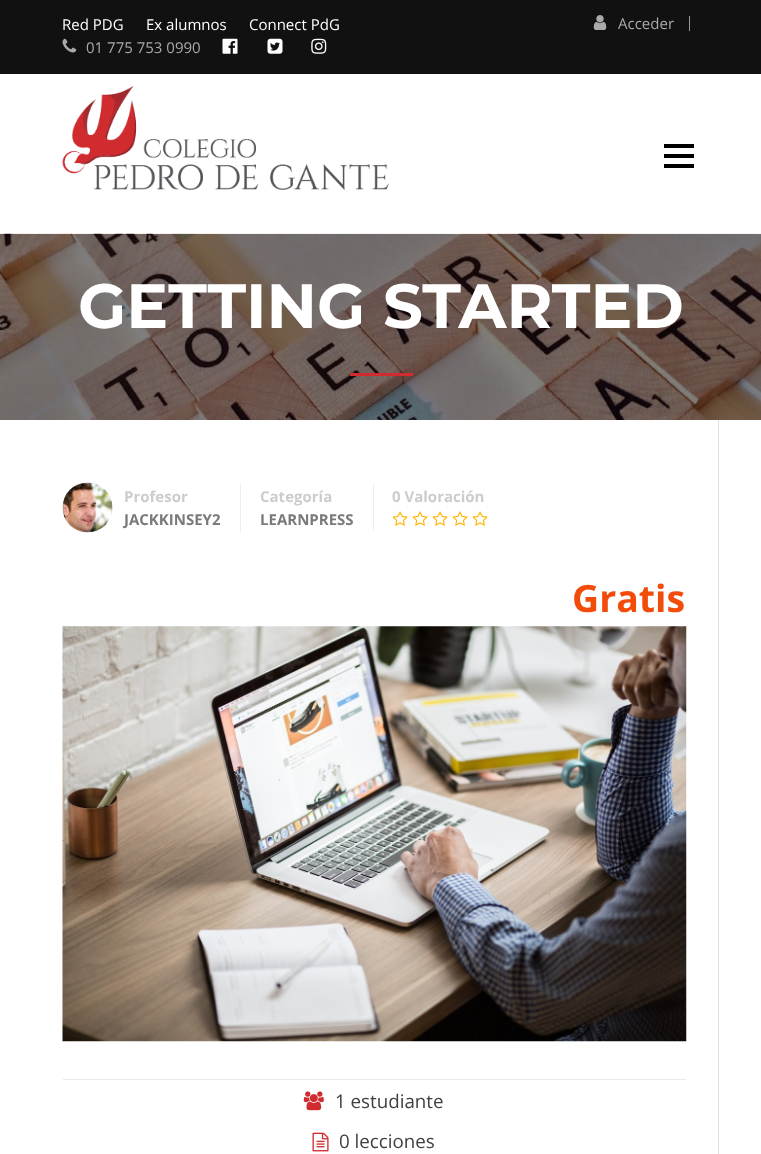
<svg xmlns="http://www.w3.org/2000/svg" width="761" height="1154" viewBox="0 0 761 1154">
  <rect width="100%" height="100%" fill="#ffffff"/>
  <rect x="0" y="0" width="761" height="74" fill="#111111"/>
  <text x="62" y="30" font-family="Open Sans" font-size="15" fill="#ffffff">Red PDG</text>
  <text x="146" y="30" font-family="Open Sans" font-size="15" fill="#ffffff">Ex alumnos</text>
  <text x="249" y="30" font-family="Open Sans" font-size="15" fill="#ffffff">Connect PdG</text>
  <image x="62" y="38" width="15" height="15" href="img1.png"/>
  <text x="86" y="53" font-family="Open Sans" font-size="15" fill="#aaaaaa">01 775 753 0990</text>
  <image x="222" y="38" width="16" height="16" href="img2.png"/>
  <image x="267" y="38" width="16" height="16" href="img3.png"/>
  <image x="311" y="38" width="16" height="16" href="img4.png"/>
  <image x="593" y="15" width="14" height="15" href="img5.png"/>
  <text x="618" y="29" font-family="Open Sans" font-size="15" fill="#aaaaaa">Acceder</text>
  <rect x="689" y="16" width="1" height="15" fill="#9a9a9a"/>
  <image x="62" y="86" width="327" height="104" href="img6.png"/>
  <rect x="664" y="154" width="30" height="4" fill="#000000"/>
  <rect x="664" y="144" width="30" height="4" fill="#000000"/>
  <rect x="664" y="164" width="30" height="4" fill="#000000"/>
  <image x="0" y="233" width="761" height="187" href="img7.png"/>
  <text x="78" y="328" font-family="Montserrat" font-size="62.5" font-weight="bold" fill="#ffffff">GETTING STARTED</text>
  <rect x="350" y="373" width="63" height="3" fill="#d02c2f"/>
  <rect x="718" y="420" width="1" height="734" fill="#e1e2e4"/>
  <rect x="240" y="483" width="1" height="50" fill="#eeeeee"/>
  <image x="62" y="482" width="51" height="51" href="img8.png"/>
  <text x="124" y="502" font-family="Open Sans" font-size="15" font-weight="bold" fill="#cccccc">Profesor</text>
  <text x="124" y="525" font-family="Open Sans" font-size="15" font-weight="bold" fill="#7a7a7a">JACKKINSEY2</text>
  <rect x="373" y="483" width="1" height="47" fill="#eeeeee"/>
  <text x="260" y="502" font-family="Open Sans" font-size="15" font-weight="bold" fill="#cccccc">Categoría</text>
  <text x="260" y="525" font-family="Open Sans" font-size="15" font-weight="bold" fill="#7a7a7a">LEARNPRESS</text>
  <text x="392" y="502" font-family="Open Sans" font-size="15" font-weight="bold" fill="#cccccc">0 Valoración</text>
  <image x="393" y="511" width="15" height="15" href="img9.png"/>
  <image x="412" y="511" width="16" height="15" href="img10.png"/>
  <image x="432" y="511" width="16" height="15" href="img10.png"/>
  <image x="452" y="511" width="16" height="15" href="img10.png"/>
  <image x="472" y="511" width="16" height="15" href="img10.png"/>
  <text x="572" y="612" font-family="Open Sans" font-size="37.5" font-weight="bold" fill="#f24c0a">Gratis</text>
  <image x="62" y="626" width="625" height="416" href="img11.png"/>
  <rect x="63" y="1079" width="623" height="1" fill="#eaeaea"/>
  <image x="303" y="1091" width="21" height="20" href="img12.png"/>
  <text x="335" y="1108" font-family="Open Sans" font-size="18.75" fill="#404040">1 estudiante</text>
  <image x="312" y="1132" width="17" height="20" href="img13.png"/>
  <text x="339" y="1148" font-family="Open Sans" font-size="18.75" fill="#404040">0 lecciones</text>
</svg>
